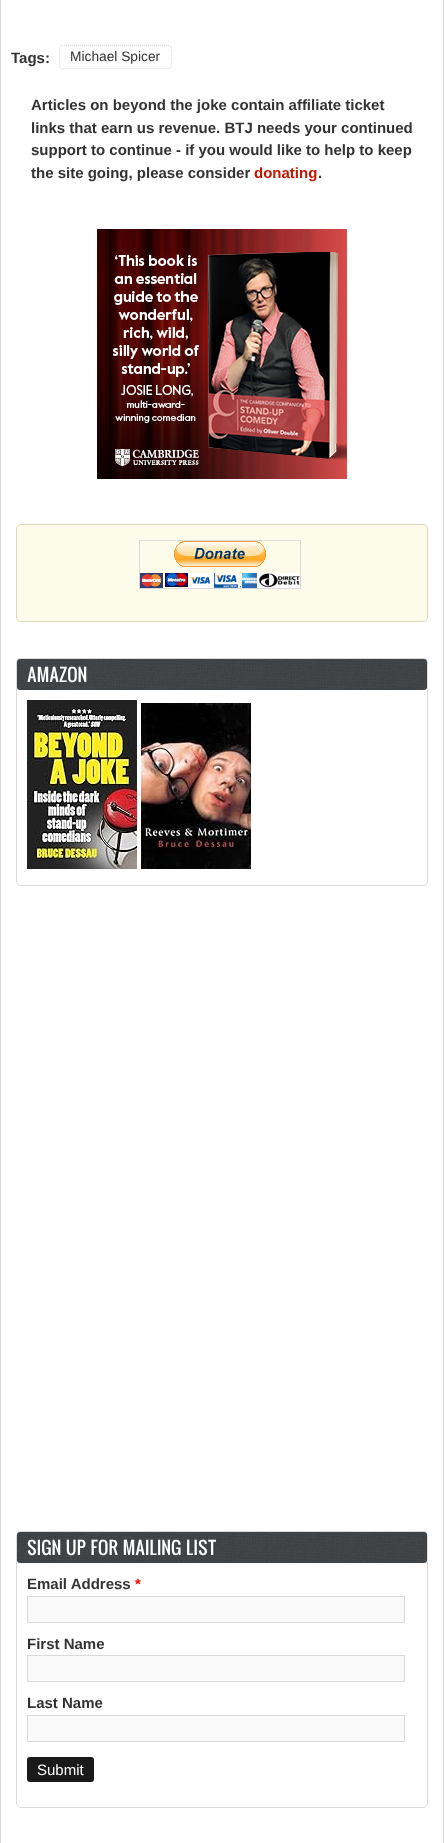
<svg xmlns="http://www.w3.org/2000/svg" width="444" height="1843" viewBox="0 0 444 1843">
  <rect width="100%" height="100%" fill="#ffffff"/>
  <rect x="0.5" y="-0.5" width="443" height="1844" fill="none" stroke="#d9d9d9"/>
  <text x="11" y="63" font-family="Liberation Sans" font-size="15" font-weight="bold" fill="#333333">Tags:</text>
  <path d="M62 45.5H169C170.5 45.5 171.5 46.5 171.5 48V66C171.5 67.5 170.5 68.5 169 68.5H62C60.5 68.5 59.5 67.5 59.5 66V48C59.5 46.5 60.5 45.5 62 45.5Z" fill="none" stroke="#dadada" stroke-dasharray="1 1"/>
  <text x="70" y="61" font-family="Liberation Sans" font-size="13.75" fill="#333333">Michael Spicer</text>
  <text x="31" y="110" font-family="Liberation Sans" font-size="15" font-weight="bold" fill="#333333">Articles on beyond the joke contain affiliate ticket</text>
  <text x="31" y="133" font-family="Liberation Sans" font-size="15" font-weight="bold" fill="#333333">links that earn us revenue. BTJ needs your continued</text>
  <text x="31" y="155" font-family="Liberation Sans" font-size="15" font-weight="bold" fill="#333333">support to continue - if you would like to help to keep</text>
  <text x="31" y="178" font-family="Liberation Sans" font-size="15" font-weight="bold" fill="#333333">the site going, please consider</text>
  <text x="254" y="178" font-family="Liberation Sans" font-size="15" font-weight="bold" fill="#c01700">donating</text>
  <text x="318" y="178" font-family="Liberation Sans" font-size="15" font-weight="bold" fill="#333333">.</text>
  <image x="97" y="229" width="250" height="250" href="img1.png"/>
  <rect x="16.5" y="524.5" width="411" height="97" rx="4.5" fill="#fdfbe9" stroke="#dcd7bb"/>
  <rect x="139.5" y="540.5" width="161" height="48" fill="none" stroke="#dbdada"/>
  <image x="140" y="541" width="160" height="47" href="img2.png"/>
  <rect x="16.5" y="658.5" width="411" height="227" rx="4.5" fill="none" stroke="#dadada"/>
  <image x="17" y="659" width="410" height="31" href="img3.png"/>
  <text x="27" y="682" font-family="Oswald" font-size="17.4" fill="#ffffff">AMAZON</text>
  <image x="27" y="700" width="110" height="169" href="img4.png"/>
  <image x="141" y="703" width="110" height="166" href="img5.png"/>
  <rect x="16.5" y="1531.5" width="411" height="276" rx="4.5" fill="none" stroke="#dadada"/>
  <image x="17" y="1532" width="410" height="31" href="img3.png"/>
  <text x="27" y="1555" font-family="Oswald" font-size="17.4" fill="#ffffff">SIGN UP FOR MAILING LIST</text>
  <text x="27" y="1589" font-family="Liberation Sans" font-size="15" font-weight="bold" fill="#333333">Email Address</text>
  <text x="135" y="1589" font-family="Liberation Sans" font-size="15" font-weight="bold" fill="#ff0000">*</text>
  <rect x="27.5" y="1596.5" width="377" height="26" fill="#fafafa" stroke="#dbdada"/>
  <text x="27" y="1649" font-family="Liberation Sans" font-size="15" font-weight="bold" fill="#333333">First Name</text>
  <rect x="27.5" y="1655.5" width="377" height="26" fill="#fafafa" stroke="#dbdada"/>
  <text x="27" y="1708" font-family="Liberation Sans" font-size="15" font-weight="bold" fill="#333333">Last Name</text>
  <rect x="27.5" y="1715.5" width="377" height="26" fill="#fafafa" stroke="#dbdada"/>
  <rect x="27" y="1757" width="67" height="25" rx="3" fill="#1a1a1a"/>
  <text x="37" y="1775" font-family="Liberation Sans" font-size="15" fill="#ffffff">Submit</text>
</svg>
